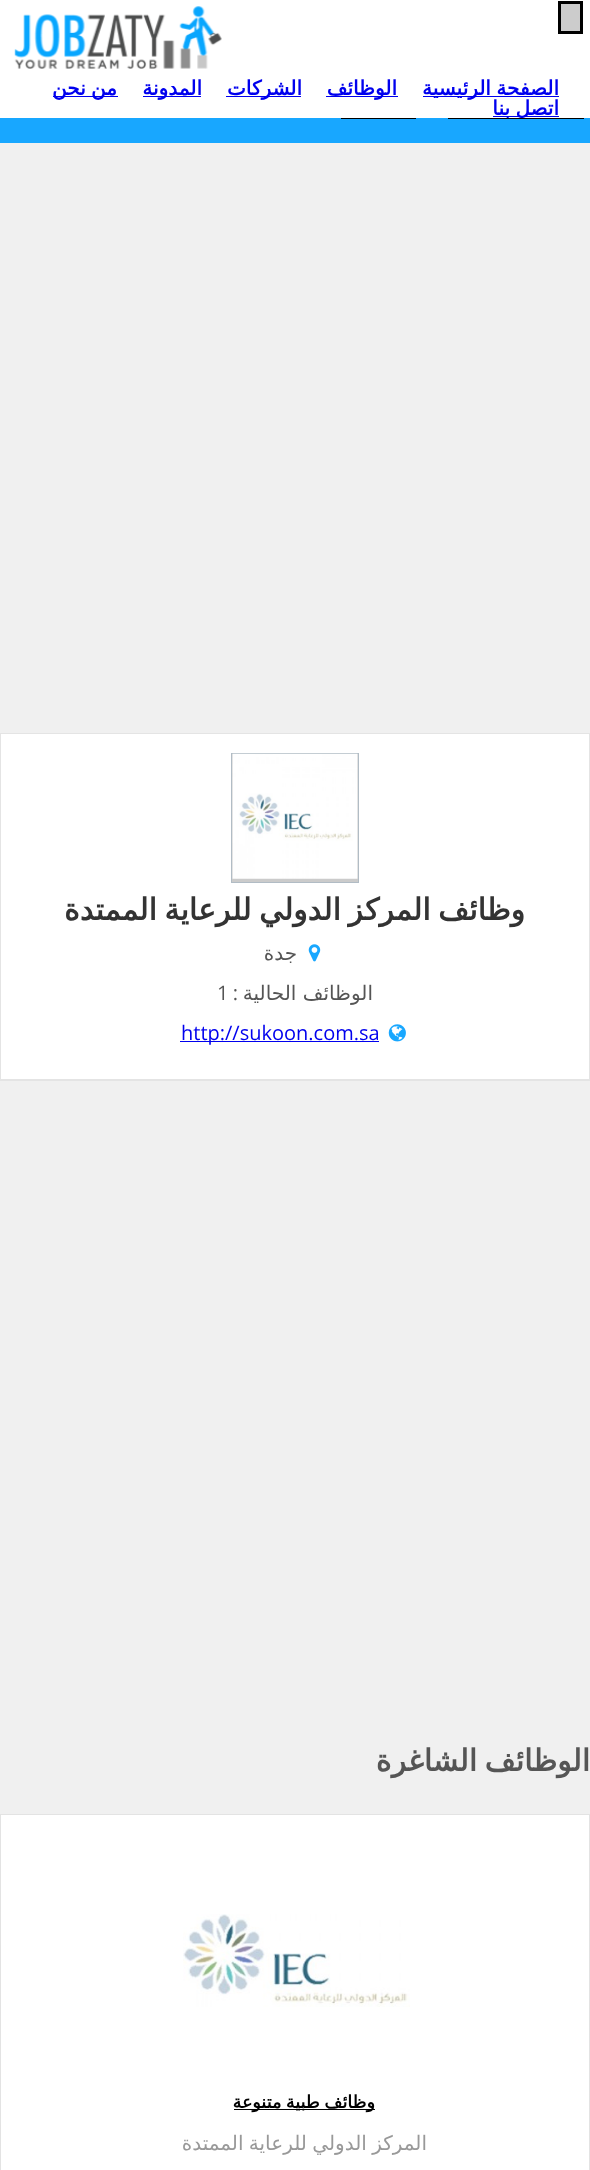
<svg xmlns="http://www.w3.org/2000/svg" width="590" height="2170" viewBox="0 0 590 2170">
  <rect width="100%" height="100%" fill="#18a7ff"/>
  <rect x="0" y="0" width="590" height="118" fill="#ffffff"/>
  <rect x="559.5" y="2.5" width="22" height="30" fill="#cccccc" stroke="#000000" stroke-width="3"/>
  <image x="14" y="6" width="208" height="63" href="img1.png"/>
  <rect x="423" y="96" width="136" height="1" fill="#0000ee"/>
  <text x="559" y="95" word-spacing="-1" font-family="DejaVu Sans" font-size="20" font-weight="bold" direction="rtl" fill="#0000ee">الصفحة الرئيسية</text>
  <rect x="326" y="96" width="72" height="1" fill="#0000ee"/>
  <text x="397" y="95" font-family="DejaVu Sans" font-size="20" font-weight="bold" direction="rtl" fill="#0000ee">الوظائف</text>
  <rect x="226" y="96" width="75" height="1" fill="#0000ee"/>
  <text x="302" y="95" font-family="DejaVu Sans" font-size="20" font-weight="bold" direction="rtl" fill="#0000ee">الشركات</text>
  <rect x="143" y="96" width="58" height="1" fill="#0000ee"/>
  <text x="202" y="95" font-family="DejaVu Sans" font-size="20" font-weight="bold" direction="rtl" fill="#0000ee">المدونة</text>
  <rect x="53" y="96" width="65" height="1" fill="#0000ee"/>
  <text x="117" y="95" word-spacing="-1" font-family="DejaVu Sans" font-size="20" font-weight="bold" direction="rtl" fill="#0000ee">من نحن</text>
  <rect x="493" y="116" width="66" height="1" fill="#0000ee"/>
  <text x="559" y="115" word-spacing="-1" font-family="DejaVu Sans" font-size="20" font-weight="bold" direction="rtl" fill="#0000ee">اتصل بنا</text>
  <rect x="448" y="118" width="136" height="1" fill="#000000"/>
  <rect x="341" y="118" width="75" height="1" fill="#000000"/>
  <rect x="0" y="143" width="590" height="1671" fill="#f0f0f0"/>
  <rect x="1" y="734" width="588" height="345" fill="#ffffff"/>
  <rect x="0.5" y="733.5" width="589" height="347" fill="none" stroke="#e4e4e4"/>
  <rect x="1" y="1079" width="588" height="1" fill="#e4e4e4"/>
  <rect x="231.5" y="753.5" width="127" height="129" fill="#cbcbcb" stroke="#b1bcc5"/>
  <image x="232" y="753" width="126" height="126" href="img2.png"/>
  <text x="525" y="920" word-spacing="-2" font-family="DejaVu Sans" font-size="30" font-weight="bold" direction="rtl" fill="#333333">وظائف المركز الدولي للرعاية الممتدة</text>
  <image x="308" y="944" width="13" height="18" href="img3.png"/>
  <text x="297" y="960" font-family="DejaVu Sans" font-size="20" direction="rtl" fill="#555555">جدة</text>
  <text x="373" y="1000" font-family="DejaVu Sans" font-size="20" direction="rtl" fill="#555555">الوظائف الحالية</text>
  <text x="238" y="1000" font-family="Open Sans" font-size="20" direction="rtl" fill="#555555">:</text>
  <text x="217" y="1000" font-family="Open Sans" font-size="20" fill="#555555">1</text>
  <image x="388" y="1024" width="18" height="18" href="img4.png"/>
  <rect x="180" y="1041" width="199" height="1" fill="#0000ee"/>
  <text x="181" y="1040" font-family="Open Sans" font-size="20" fill="#0000ee">http://sukoon.com.sa</text>
  <text x="590" y="1771" word-spacing="-2" font-family="DejaVu Sans" font-size="30" font-weight="bold" direction="rtl" fill="#555555">الوظائف الشاغرة</text>
  <rect x="0.5" y="1814.5" width="589" height="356" fill="#ffffff" stroke="#e3e3e3"/>
  <image x="183" y="1914" width="227" height="93" href="img5.png"/>
  <rect x="234" y="2109" width="141" height="1" fill="#000000"/>
  <text x="375" y="2108" word-spacing="-1" font-family="DejaVu Sans" font-size="17.5" font-weight="bold" direction="rtl" fill="#000000">وظائف طبية متنوعة</text>
  <text x="427" y="2150" word-spacing="-1" font-family="DejaVu Sans" font-size="20" direction="rtl" fill="#999999">المركز الدولي للرعاية الممتدة</text>
</svg>
